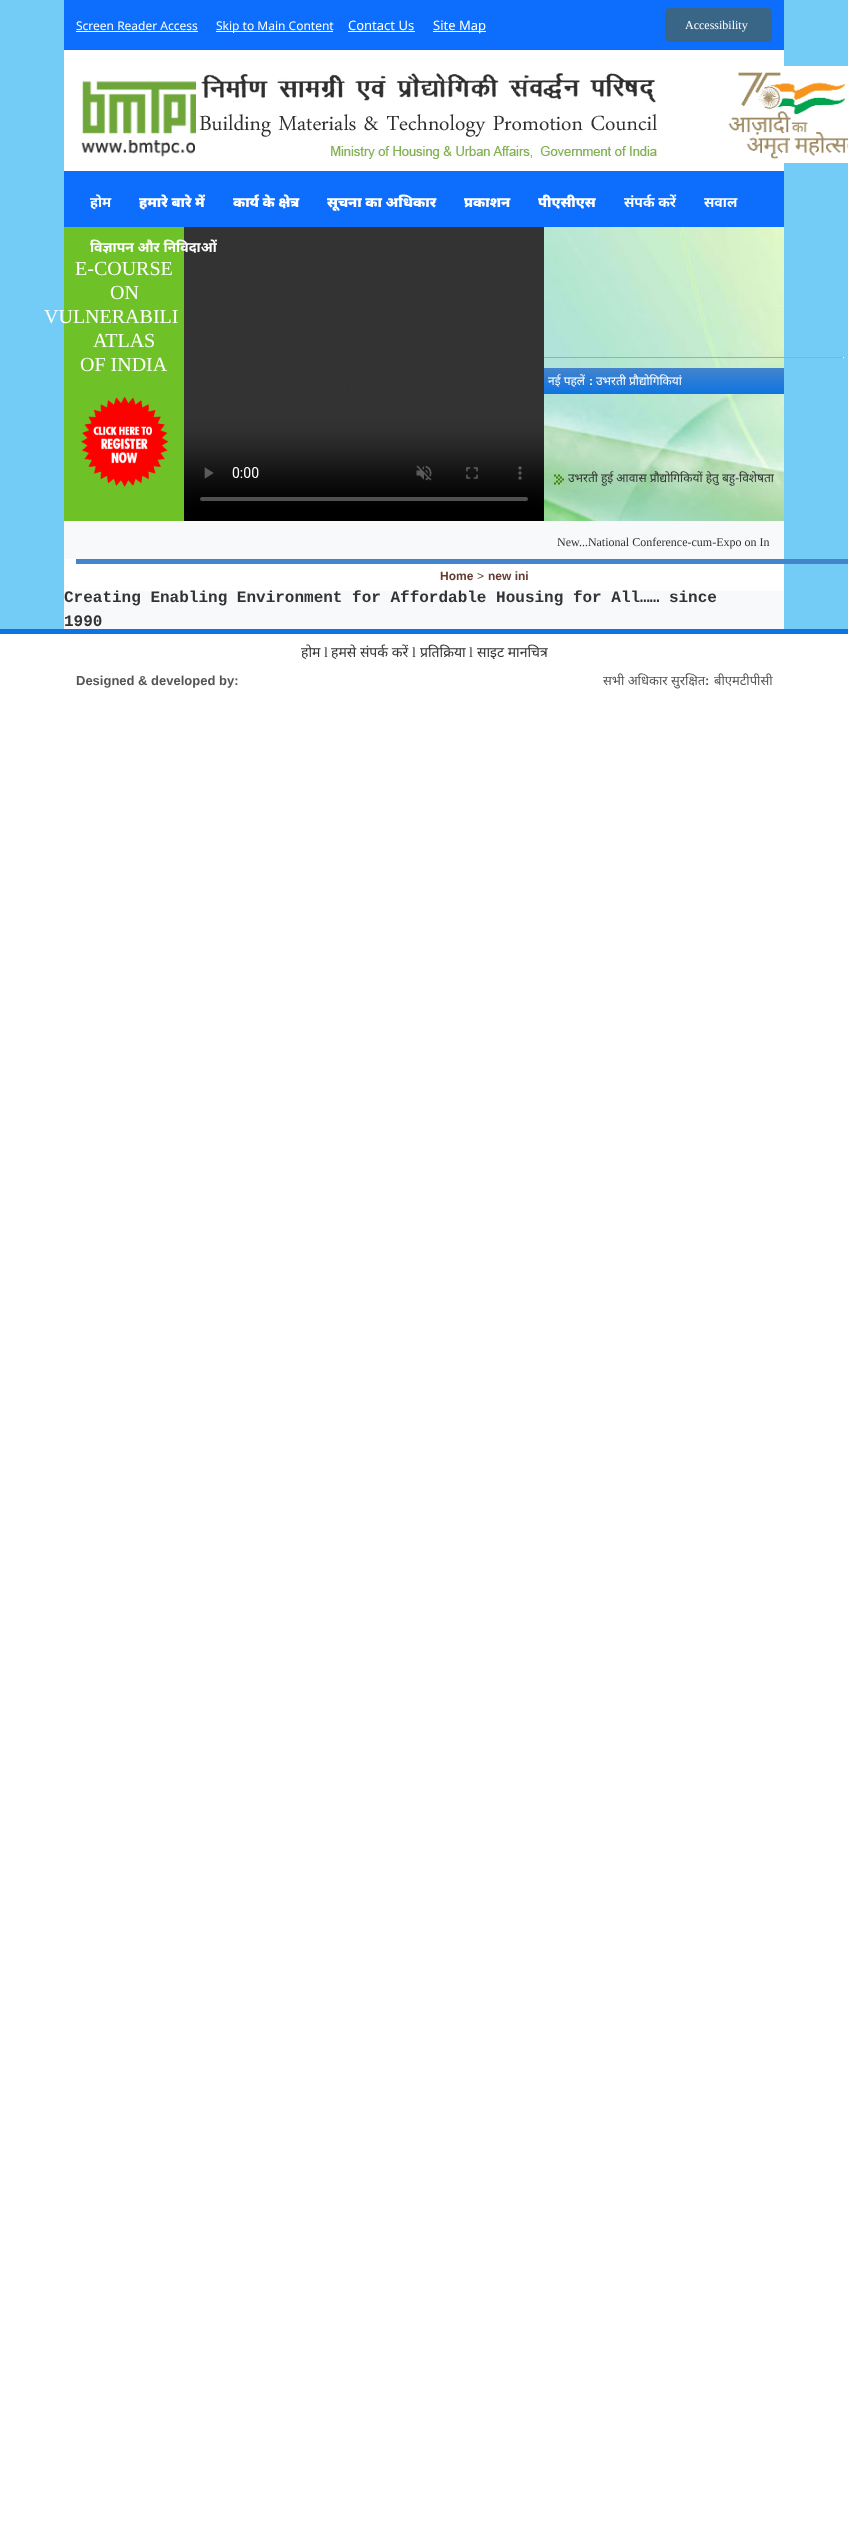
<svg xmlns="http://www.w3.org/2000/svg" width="848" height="2548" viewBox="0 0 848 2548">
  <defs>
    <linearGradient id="g1" gradientUnits="userSpaceOnUse" x1="664" y1="368" x2="664" y2="394"><stop offset="0" stop-color="#4384cb"/><stop offset="1" stop-color="#0e74e2"/></linearGradient>
  </defs>
  <rect width="100%" height="100%" fill="#ffffff"/>
  <rect x="0" y="0" width="848" height="629" fill="#73ccf5"/>
  <rect x="64" y="0" width="720" height="50" fill="#0d6efd"/>
  <text x="76" y="30" font-family="Noto Sans" font-size="12" fill="#ffffff">Screen Reader Access</text>
  <rect x="76" y="31" width="122" height="1" fill="#ffffff"/>
  <rect x="216" y="31" width="117" height="1" fill="#ffffff"/>
  <text x="216" y="30" font-family="Noto Sans" font-size="12" fill="#ffffff">Skip to Main Content</text>
  <text x="348" y="30" font-family="Noto Sans" font-size="13" fill="#ffffff">Contact Us</text>
  <rect x="348" y="31" width="67" height="1" fill="#ffffff"/>
  <rect x="433" y="31" width="53" height="1" fill="#ffffff"/>
  <text x="433" y="30" font-family="Noto Sans" font-size="13" fill="#ffffff">Site Map</text>
  <rect x="665" y="8" width="107" height="34" rx="5" fill="#396587"/>
  <text x="685" y="29" font-family="Liberation Serif" font-size="12" fill="#ffffff">Accessibility</text>
  <rect x="64" y="50" width="720" height="121" fill="#ffffff"/>
  <image x="81" y="81" width="115" height="76" href="img1.png"/>
  <image x="196" y="66" width="652" height="97" href="img2.png"/>
  <rect x="64" y="171" width="720" height="56" fill="#0d6efd"/>
  <text x="90" y="207" font-family="Noto Sans" font-size="14" font-weight="bold" fill="#ffffff">होम</text>
  <text x="624" y="207" font-family="Noto Sans" font-size="14" font-weight="bold" fill="#ffffff">संपर्क करें</text>
  <text x="704" y="207" font-family="Noto Sans" font-size="14" font-weight="bold" fill="#ffffff">सवाल</text>
  <rect x="64" y="227" width="120" height="294" fill="#6fc128"/>
  <image x="184" y="227" width="360" height="294" href="img4.png"/>
  <text x="90" y="252" font-family="Noto Sans" font-size="14" font-weight="bold" fill="#ffffff">विज्ञापन और निविदाओं</text>
  <text x="538" y="207" font-family="Noto Sans" font-size="14" font-weight="900" fill="#ffffff">पीएसीएस</text>
  <text x="464" y="207" font-family="Noto Sans" font-size="14" font-weight="900" fill="#ffffff">प्रकाशन</text>
  <text x="327" y="207" font-family="Noto Sans" font-size="14" font-weight="900" fill="#ffffff">सूचना का अधिकार</text>
  <text x="139" y="207" font-family="Noto Sans" font-size="14" font-weight="900" fill="#ffffff">हमारे बारे में</text>
  <text x="233" y="207" font-family="Noto Sans" font-size="14" font-weight="900" fill="#ffffff">कार्य के क्षेत्र</text>
  <text x="75" y="275" font-family="Liberation Serif" font-size="20" fill="#ffffff">E-COURSE</text>
  <text x="110" y="299" font-family="Liberation Serif" font-size="20" fill="#ffffff">ON</text>
  <text x="44" y="323" font-family="Liberation Serif" font-size="20" fill="#ffffff">VULNERABILI</text>
  <text x="93" y="347" font-family="Liberation Serif" font-size="20" fill="#ffffff">ATLAS</text>
  <text x="80" y="371" font-family="Liberation Serif" font-size="20" fill="#ffffff">OF INDIA</text>
  <image x="81" y="396" width="87" height="91" href="img3.png"/>
  <image x="544" y="227" width="240" height="294" href="img5.png"/>
  <image x="544" y="357" width="300" height="1" href="img6.png"/>
  <rect x="544" y="368" width="240" height="26" fill="url(#g1)"/>
  <text x="548" y="385" font-family="Noto Sans" font-size="12" fill="#ffffff">नई पहलें</text>
  <text x="589" y="385" font-family="Liberation Sans" font-size="12" font-weight="bold" fill="#ffffff">:</text>
  <text x="596" y="385" font-family="Noto Sans" font-size="12" fill="#ffffff">उभरती प्रौद्योगिकियां</text>
  <image x="554" y="474" width="10" height="11" href="img7.png"/>
  <text x="568" y="482" font-family="Noto Sans" font-size="12" fill="#333333">उभरती हुई आवास प्रौद्योगिकियों हेतु बहु-विशेषता</text>
  <rect x="64" y="521" width="720" height="38" fill="#f8f9fa"/>
  <text x="557" y="546" font-family="Liberation Serif" font-size="12" fill="#333333">New...National Conference-cum-Expo on In</text>
  <rect x="64" y="559" width="720" height="32" fill="#ffffff"/>
  <rect x="76" y="559" width="772" height="5" fill="#4384cb"/>
  <text x="440" y="580" font-family="Liberation Sans" font-size="12" font-weight="bold" fill="#643c31">Home</text>
  <text x="477" y="580" font-family="Liberation Sans" font-size="12" fill="#643c31">&gt;</text>
  <text x="488" y="580" font-family="Liberation Sans" font-size="12" font-weight="bold" fill="#643c31">new ini</text>
  <rect x="64" y="591" width="720" height="38" fill="#f8f9fa"/>
  <text x="64" y="602" font-family="Liberation Mono" font-size="16" font-weight="bold" fill="#333333">Creating Enabling Environment for Affordable Housing for All…… since</text>
  <text x="64" y="626" font-family="Liberation Mono" font-size="16" font-weight="bold" fill="#333333">1990</text>
  <rect x="0" y="629" width="848" height="5" fill="#0e74e2"/>
  <text x="301" y="657" font-family="Noto Sans" font-size="14" fill="#333333">होम</text>
  <text x="324" y="657" font-family="Liberation Serif" font-size="14" fill="#333333">l</text>
  <text x="331" y="657" font-family="Noto Sans" font-size="14" fill="#333333">हमसे संपर्क करें</text>
  <text x="412" y="657" font-family="Liberation Serif" font-size="14" fill="#333333">l</text>
  <text x="420" y="657" font-family="Noto Sans" font-size="14" fill="#333333">प्रतिक्रिया</text>
  <text x="469" y="657" font-family="Liberation Serif" font-size="14" fill="#333333">l</text>
  <text x="477" y="657" font-family="Noto Sans" font-size="14" fill="#333333">साइट मानचित्र</text>
  <text x="76" y="685" font-family="Liberation Sans" font-size="13" font-weight="bold" fill="#555555">Designed &amp; developed by:</text>
  <text x="603" y="685" font-family="Noto Sans" font-size="13" fill="#555555">सभी अधिकार सुरक्षित</text>
  <text x="705" y="685" font-family="Liberation Sans" font-size="13" font-weight="bold" fill="#555555">:</text>
  <text x="714" y="685" font-family="Noto Sans" font-size="13" fill="#555555">बीएमटीपीसी</text>
</svg>
